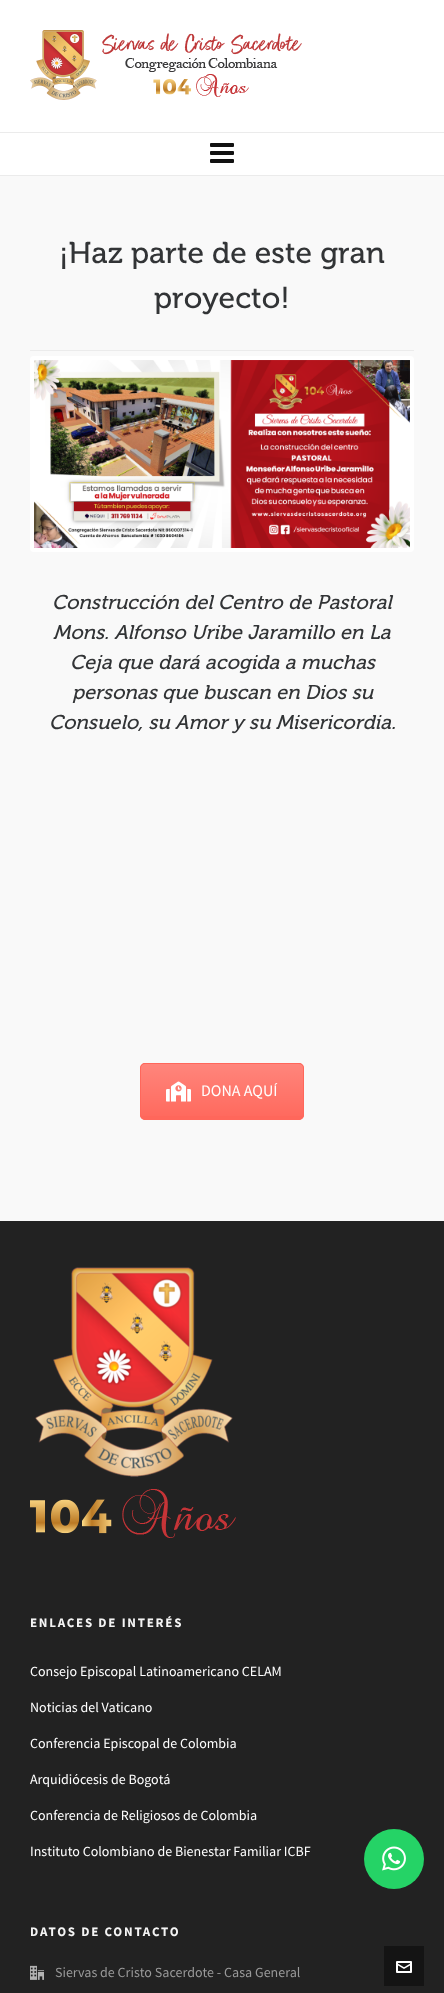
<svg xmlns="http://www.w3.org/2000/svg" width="444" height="1993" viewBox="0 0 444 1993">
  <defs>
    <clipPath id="clip1"><rect x="140" y="1063" width="164" height="57" rx="5"/></clipPath>
    <linearGradient id="g1" gradientUnits="userSpaceOnUse" x1="222" y1="1064" x2="222" y2="1119"><stop offset="0" stop-color="#ffffff" stop-opacity="0.2"/><stop offset="1" stop-color="#ffffff" stop-opacity="0.01"/></linearGradient>
  </defs>
  <rect width="100%" height="100%" fill="#f9f9f9"/>
  <rect x="0" y="0" width="444" height="175" fill="#ffffff"/>
  <rect x="0" y="175" width="444" height="1" fill="#ebebeb"/>
  <image x="30" y="30" width="272" height="70" href="img1.png"/>
  <rect x="0" y="132" width="444" height="1" fill="#ebebeb"/>
  <image x="210" y="143" width="24" height="20" href="img2.png"/>
  <text x="59" y="263" font-family="'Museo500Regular'" font-size="30" fill="#323436">¡Haz parte de este gran</text>
  <text x="154" y="308" font-family="'Museo500Regular'" font-size="30" fill="#323436">proyecto!</text>
  <rect x="30" y="350" width="384" height="1" fill="#ebebeb"/>
  <rect x="30" y="356" width="384" height="196" rx="4" fill="#ffffff"/>
  <image x="34" y="360" width="376" height="188" href="img3.png"/>
  <text x="52" y="609" font-family="'Museo500Regular'" font-size="20" font-style="italic" fill="#323436">Construcción del Centro de Pastoral</text>
  <text x="53" y="639" font-family="'Museo500Regular'" font-size="20" font-style="italic" fill="#323436">Mons. Alfonso Uribe Jaramillo en La</text>
  <text x="70" y="669" font-family="'Museo500Regular'" font-size="20" font-style="italic" fill="#323436">Ceja que dará acogida a muchas</text>
  <text x="72" y="699" font-family="'Museo500Regular'" font-size="20" font-style="italic" fill="#323436">personas que buscan en Dios su</text>
  <text x="49" y="729" font-family="'Museo500Regular'" font-size="20" font-style="italic" fill="#323436">Consuelo, su Amor y su Misericordia.</text>
  <rect x="140" y="1063" width="164" height="57" rx="5" fill="#ff675b"/>
  <g clip-path="url(#clip1)">
    <rect x="140" y="1064" width="164" height="52" fill="url(#g1)"/>
  </g>
  <rect x="140.5" y="1063.5" width="163" height="56" rx="4.5" fill="none" stroke="#ff675b"/>
  <image x="166" y="1081" width="25" height="21" href="img4.png"/>
  <text x="201" y="1096" font-family="Source Sans Pro" font-size="16" fill="#ffffff">DONA AQUÍ</text>
  <rect x="0" y="1221" width="444" height="772" fill="#222222"/>
  <image x="30" y="1267" width="206" height="271" href="img5.png"/>
  <text x="30" y="1627" font-family="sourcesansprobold" font-size="13" font-weight="bold" letter-spacing="1.75" fill="#f4f4f4">ENLACES DE INTERÉS</text>
  <text x="30" y="1676" font-family="Source Sans Pro" font-size="14" fill="#ffffff">Consejo Episcopal Latinoamericano CELAM</text>
  <text x="30" y="1712" font-family="Source Sans Pro" font-size="14" fill="#ffffff">Noticias del Vaticano</text>
  <text x="30" y="1748" font-family="Source Sans Pro" font-size="14" fill="#ffffff">Conferencia Episcopal de Colombia</text>
  <text x="30" y="1784" font-family="Source Sans Pro" font-size="14" fill="#ffffff">Arquidiócesis de Bogotá</text>
  <text x="30" y="1820" font-family="Source Sans Pro" font-size="14" fill="#ffffff">Conferencia de Religiosos de Colombia</text>
  <text x="30" y="1856" font-family="Source Sans Pro" font-size="14" fill="#ffffff">Instituto Colombiano de Bienestar Familiar ICBF</text>
  <text x="30" y="1936" font-family="sourcesansprobold" font-size="13" font-weight="bold" letter-spacing="1.75" fill="#f4f4f4">DATOS DE CONTACTO</text>
  <image x="30" y="1965" width="14" height="15" href="img6.png"/>
  <text x="55" y="1977" font-family="Source Sans Pro" font-size="14" fill="#999999">Siervas de Cristo Sacerdote - Casa General</text>
  <rect x="384" y="1946" width="40" height="40" fill="#141414"/>
  <image x="396" y="1961" width="16" height="12" href="img7.png"/>
  <circle cx="394" cy="1859" r="30" fill="#25d366"/>
  <image x="382" y="1846" width="24" height="25" href="img8.png"/>
</svg>
